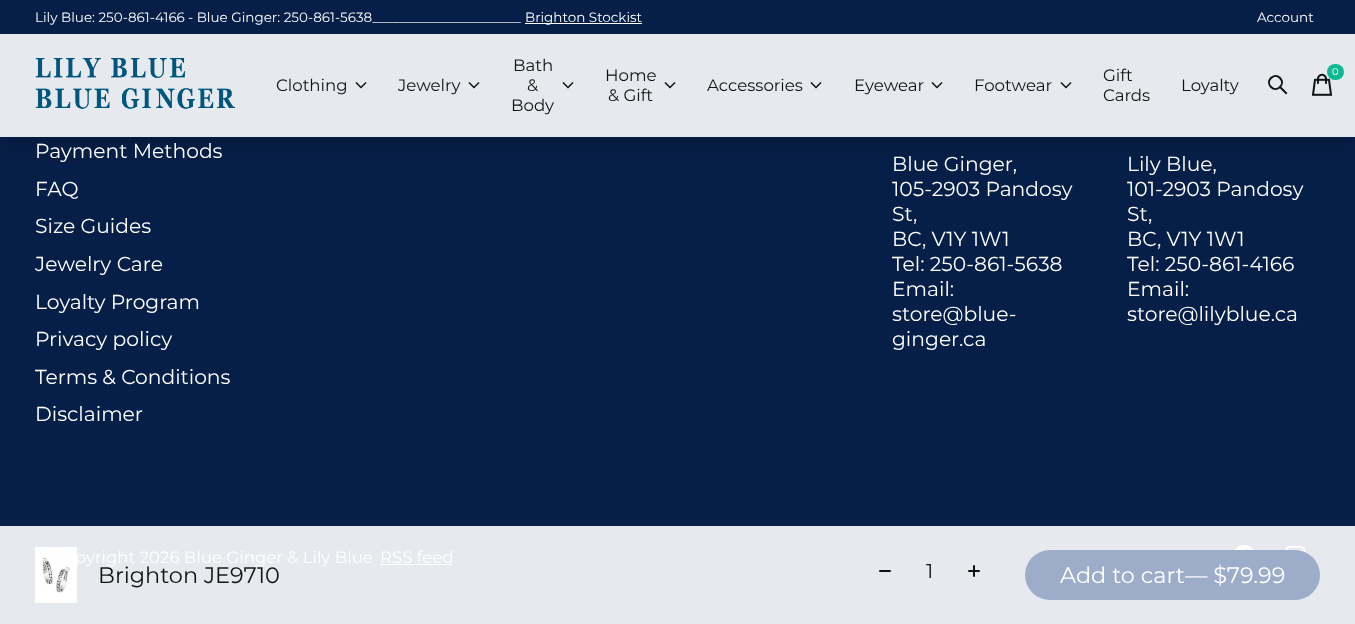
<svg xmlns="http://www.w3.org/2000/svg" width="1355" height="624" viewBox="0 0 1355 624">
  <defs>
    <clipPath id="clip1"><rect x="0" y="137" width="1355" height="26"/></clipPath>
    <filter id="blur1" x="-50%" y="-200%" width="200%" height="500%"><feGaussianBlur stdDeviation="12.5"/></filter>
  </defs>
  <rect width="100%" height="100%" fill="#061f48"/>
  <g clip-path="url(#clip1)">
    <rect x="0" y="47" width="1355" height="104" fill="#000000" fill-opacity="0.12" filter="url(#blur1)"/>
  </g>
  <text x="35" y="22" font-family="Montserrat" font-size="13.5" fill="#ffffff">Lily Blue: 250-861-4166</text>
  <text x="188" y="22" font-family="Montserrat" font-size="13.5" fill="#ffffff">- Blue Ginger: 250-861-5638______________________</text>
  <rect x="525" y="23" width="117" height="1" fill="#ffffff"/>
  <text x="525" y="22" font-family="Montserrat" font-size="13.5" fill="#ffffff">Brighton Stockist</text>
  <text x="1257" y="22" font-family="Montserrat" font-size="13.5" fill="#ffffff">Account</text>
  <rect x="0" y="34" width="1355" height="103" fill="#ffffff" fill-opacity="0.9"/>
  <image x="35" y="58" width="201" height="51" href="img1.png"/>
  <text x="276" y="91" font-family="Montserrat" font-size="16.6" fill="#121212">Clothing</text>
  <path d="M356.5 83L361 87.5M365.5 83L361 87.5" fill="none" stroke="#121212" stroke-width="1.5" stroke-linecap="square"/>
  <text x="398" y="91" font-family="Montserrat" font-size="16.6" fill="#121212">Jewelry</text>
  <path d="M469.5 83L474 87.5M478.5 83L474 87.5" fill="none" stroke="#121212" stroke-width="1.5" stroke-linecap="square"/>
  <text x="513" y="71" font-family="Montserrat" font-size="16.6" fill="#121212">Bath</text>
  <text x="527" y="91" font-family="Montserrat" font-size="16.6" fill="#121212">&amp;</text>
  <path d="M563.5 83L568 87.5M572.5 83L568 87.5" fill="none" stroke="#121212" stroke-width="1.5" stroke-linecap="square"/>
  <text x="511" y="111" font-family="Montserrat" font-size="16.6" fill="#121212">Body</text>
  <text x="605" y="81" font-family="Montserrat" font-size="16.6" fill="#121212">Home</text>
  <path d="M665.5 83L670 87.5M674.5 83L670 87.5" fill="none" stroke="#121212" stroke-width="1.5" stroke-linecap="square"/>
  <text x="608" y="101" font-family="Montserrat" font-size="16.6" fill="#121212">&amp; Gift</text>
  <text x="707" y="91" font-family="Montserrat" font-size="16.6" fill="#121212">Accessories</text>
  <path d="M811.5 83L816 87.5M820.5 83L816 87.5" fill="none" stroke="#121212" stroke-width="1.5" stroke-linecap="square"/>
  <text x="854" y="91" font-family="Montserrat" font-size="16.6" fill="#121212">Eyewear</text>
  <path d="M932.5 83L937 87.5M941.5 83L937 87.5" fill="none" stroke="#121212" stroke-width="1.5" stroke-linecap="square"/>
  <text x="974" y="91" font-family="Montserrat" font-size="16.6" fill="#121212">Footwear</text>
  <path d="M1061.5 83L1066 87.5M1070.5 83L1066 87.5" fill="none" stroke="#121212" stroke-width="1.5" stroke-linecap="square"/>
  <text x="1103" y="81" font-family="Montserrat" font-size="16.6" fill="#121212">Gift</text>
  <text x="1103" y="101" font-family="Montserrat" font-size="16.6" fill="#121212">Cards</text>
  <text x="1181" y="91" font-family="Montserrat" font-size="16.6" fill="#121212">Loyalty</text>
  <image x="1311" y="73" width="22" height="23" href="img2.png"/>
  <rect x="1327" y="64" width="17" height="16" rx="8" fill="#0eb994"/>
  <text x="1332" y="75" font-family="Montserrat" font-size="10" fill="#ffffff">0</text>
  <path d="M1280 87L1286 93M1280 78C1286 84 1277 93 1271 87C1265 81 1274 72 1280 78" fill="none" stroke="#121212" stroke-width="2" stroke-linecap="square"/>
  <rect x="0" y="526" width="1355" height="98" fill="#e6e9ed"/>
  <text x="35" y="158" font-family="Montserrat" font-size="20.25" fill="#ffffff">Payment Methods</text>
  <text x="35" y="196" font-family="Montserrat" font-size="20.25" fill="#ffffff">FAQ</text>
  <text x="35" y="233" font-family="Montserrat" font-size="20.25" fill="#ffffff">Size Guides</text>
  <text x="35" y="271" font-family="Montserrat" font-size="20.25" fill="#ffffff">Jewelry Care</text>
  <text x="35" y="309" font-family="Montserrat" font-size="20.25" fill="#ffffff">Loyalty Program</text>
  <text x="35" y="346" font-family="Montserrat" font-size="20.25" fill="#ffffff">Privacy policy</text>
  <text x="35" y="384" font-family="Montserrat" font-size="20.25" fill="#ffffff">Terms &amp; Conditions</text>
  <text x="35" y="421" font-family="Montserrat" font-size="20.25" fill="#ffffff">Disclaimer</text>
  <text x="892" y="171" font-family="Montserrat" font-size="20.25" fill="#ffffff">Blue Ginger,</text>
  <text x="892" y="196" font-family="Montserrat" font-size="20.25" fill="#ffffff">105-2903 Pandosy</text>
  <text x="892" y="221" font-family="Montserrat" font-size="20.25" fill="#ffffff">St,</text>
  <text x="892" y="246" font-family="Montserrat" font-size="20.25" fill="#ffffff">BC, V1Y 1W1</text>
  <text x="892" y="271" font-family="Montserrat" font-size="20.25" fill="#ffffff">Tel: 250-861-5638</text>
  <text x="892" y="296" font-family="Montserrat" font-size="20.25" fill="#ffffff">Email:</text>
  <text x="892" y="321" font-family="Montserrat" font-size="20.25" fill="#ffffff">store@blue-</text>
  <text x="892" y="346" font-family="Montserrat" font-size="20.25" fill="#ffffff">ginger.ca</text>
  <text x="1127" y="171" font-family="Montserrat" font-size="20.25" fill="#ffffff">Lily Blue,</text>
  <text x="1127" y="196" font-family="Montserrat" font-size="20.25" fill="#ffffff">101-2903 Pandosy</text>
  <text x="1127" y="221" font-family="Montserrat" font-size="20.25" fill="#ffffff">St,</text>
  <text x="1127" y="246" font-family="Montserrat" font-size="20.25" fill="#ffffff">BC, V1Y 1W1</text>
  <text x="1127" y="271" font-family="Montserrat" font-size="20.25" fill="#ffffff">Tel: 250-861-4166</text>
  <text x="1127" y="296" font-family="Montserrat" font-size="20.25" fill="#ffffff">Email:</text>
  <text x="1127" y="321" font-family="Montserrat" font-size="20.25" fill="#ffffff">store@lilyblue.ca</text>
  <image x="1235" y="545" width="19" height="5" href="img3.png"/>
  <image x="1285" y="545" width="21" height="8" href="img4.png"/>
  <text x="75" y="563" font-family="Montserrat" font-size="16.6" fill="#ffffff">pyright 2026 Blue Ginger &amp; Lily Blue</text>
  <text x="380" y="563" font-family="Montserrat" font-size="16.6" fill="#ffffff">RSS feed</text>
  <rect x="380" y="564" width="73" height="1" fill="#ffffff"/>
  <image x="35" y="547" width="42" height="56" href="img5.png"/>
  <text x="98" y="583" font-family="Montserrat" font-size="22.4" fill="#121212">Brighton JE9710</text>
  <image x="879" y="570" width="12" height="2" href="img6.png"/>
  <text x="926" y="578" font-family="Montserrat" font-size="20" fill="#121212">1</text>
  <image x="968" y="565" width="12" height="12" href="img7.png"/>
  <rect x="1025" y="550" width="295" height="50" rx="25" fill="#9dacc9"/>
  <text x="1060" y="583" font-family="Montserrat" font-size="22.4" fill="#ffffff">Add to cart— $79.99</text>
</svg>
